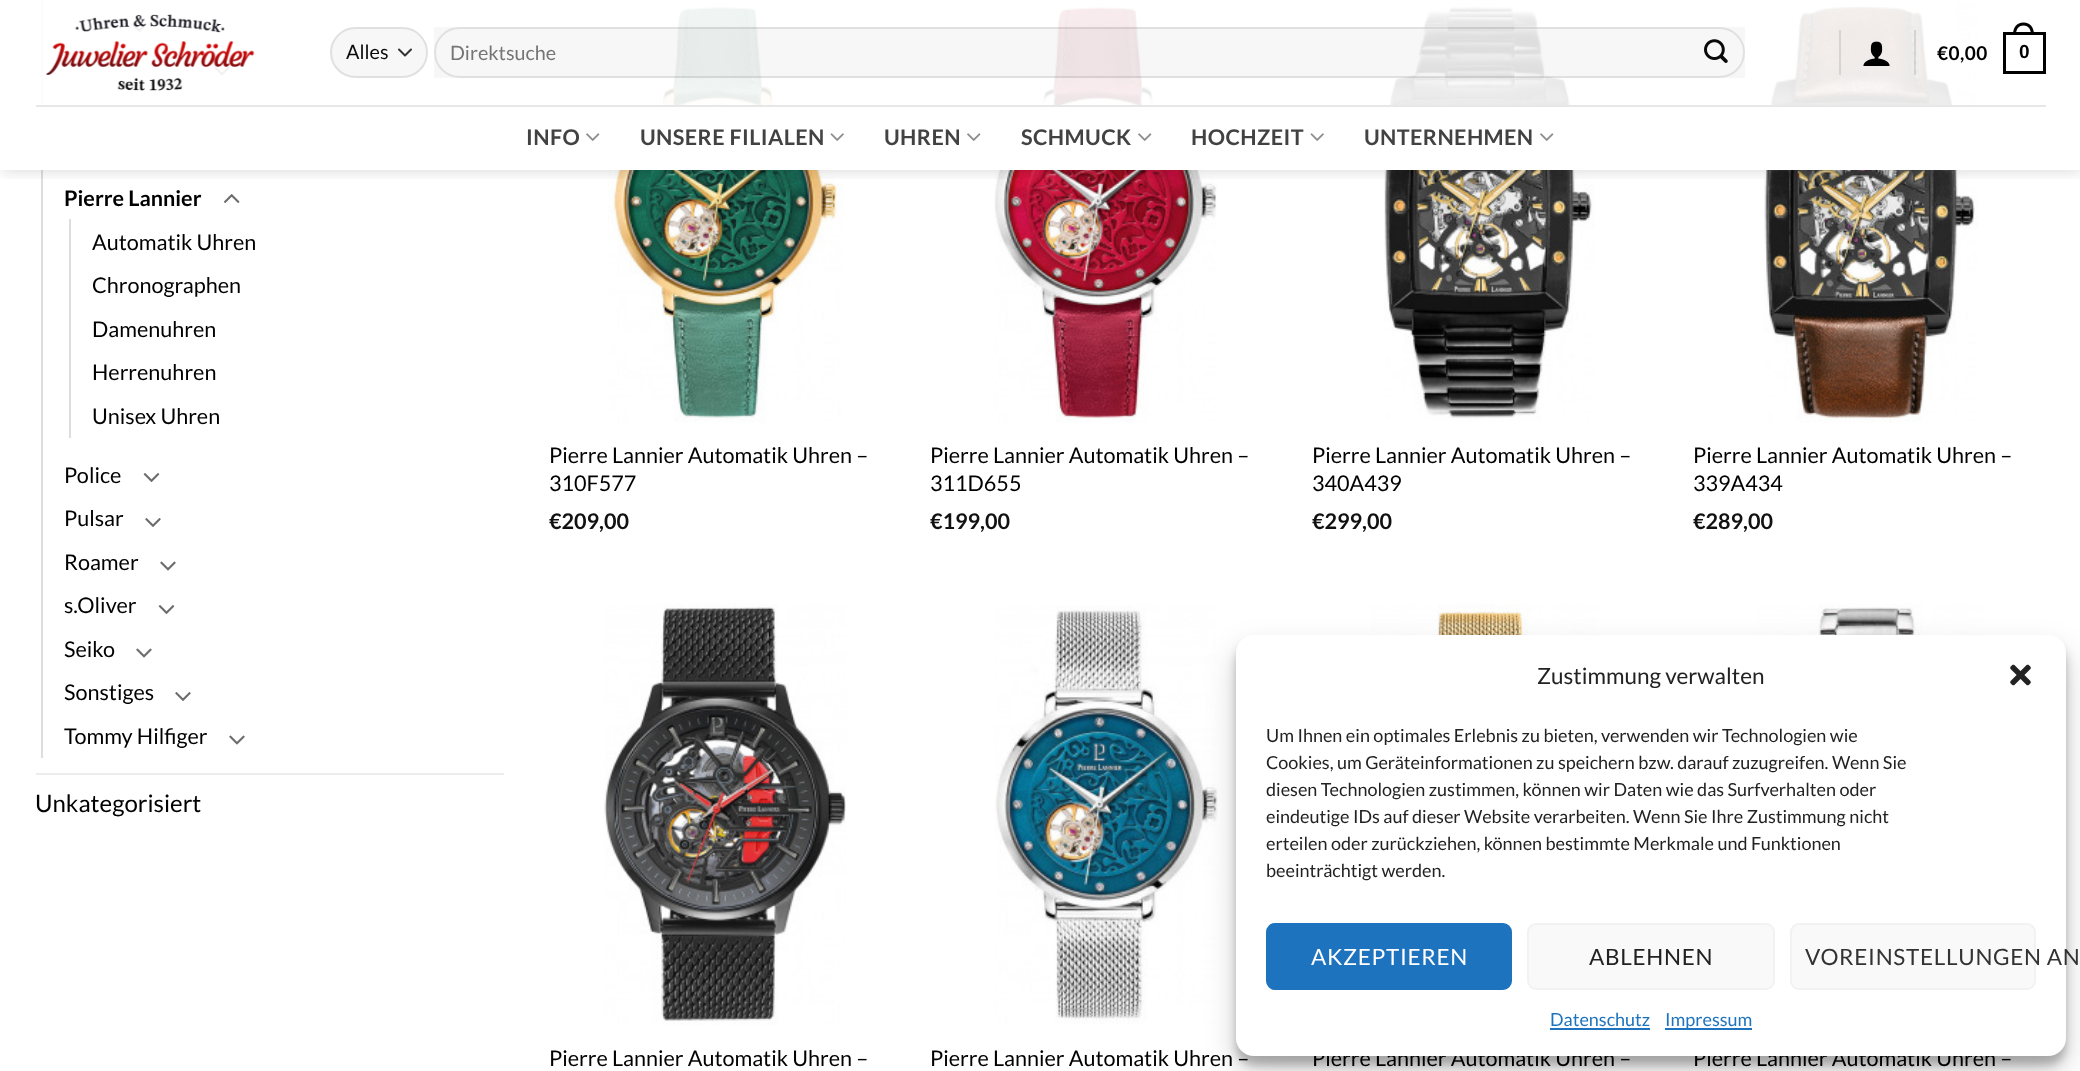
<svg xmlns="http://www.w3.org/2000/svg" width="2080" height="1071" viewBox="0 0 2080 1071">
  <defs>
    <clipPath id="clip1"><rect x="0" y="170" width="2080" height="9"/></clipPath>
    <filter id="blur1" x="-50%" y="-200%" width="200%" height="500%"><feGaussianBlur stdDeviation="7.5"/></filter>
    <filter id="blur2" x="-50%" y="-200%" width="200%" height="500%"><feGaussianBlur stdDeviation="4.5"/></filter>
    <filter id="blur3" x="-50%" y="-200%" width="200%" height="500%"><feGaussianBlur stdDeviation="15"/></filter>
  </defs>
  <rect width="100%" height="100%" fill="#ffffff"/>
  <rect x="41" y="0" width="2" height="758" fill="#dddddd"/>
  <image x="131" y="23" width="17" height="9" href="img6.png"/>
  <image x="214" y="66" width="16" height="10" href="img7.png"/>
  <image x="224" y="194" width="16" height="9" href="img8.png"/>
  <image x="608" y="3" width="236" height="420" href="img10.png"/>
  <image x="994" y="2" width="223" height="421" href="img11.png"/>
  <image x="1384" y="3" width="211" height="418" href="img12.png"/>
  <image x="1764" y="2" width="214" height="421" href="img13.png"/>
  <g clip-path="url(#clip1)">
    <rect x="2" y="2" width="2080" height="169" fill="#000000" fill-opacity="0.15" filter="url(#blur1)"/>
  </g>
  <rect x="41" y="0" width="1915" height="105" fill="#ffffff" fill-opacity="0.9"/>
  <image x="45" y="14" width="210" height="77" href="img1.png"/>
  <rect x="330" y="27" width="98" height="51" rx="25.5" fill="#f7f7f7"/>
  <path d="M399 49.5L405 55.5L411 49.5" fill="none" stroke="#333333" stroke-width="2" stroke-linecap="round" stroke-linejoin="round"/>
  <rect x="331" y="28" width="96" height="49" rx="24.5" fill="none" stroke="#000000" stroke-opacity="0.09" stroke-width="2"/>
  <text x="346" y="59" font-family="Lato" font-size="19.75" fill="#0a0a0a">Alles</text>
  <rect x="434" y="27" width="1311" height="51" fill="#000000" fill-opacity="0.03"/>
  <rect x="435" y="28" width="1309" height="49" rx="24.5" fill="none" stroke="#000000" stroke-opacity="0.09" stroke-width="2"/>
  <text x="450" y="60" font-family="Lato" font-size="19.75" fill="#757575">Direktsuche</text>
  <image x="1704" y="39" width="24" height="24" href="img2.png"/>
  <rect x="1839" y="30" width="2" height="45" fill="#000000" fill-opacity="0.1"/>
  <image x="1863" y="41" width="27" height="25" href="img3.png"/>
  <rect x="1914" y="30" width="2" height="45" fill="#000000" fill-opacity="0.1"/>
  <text x="1937" y="60" font-family="Lato" font-size="19" font-weight="bold" letter-spacing="0.5" fill="#000000">€0,00</text>
  <rect x="2004.5" y="33.5" width="40" height="39" fill="none" stroke="#000000" stroke-width="3"/>
  <path d="M2023.5 22.5C2030.5 22.5 2034 28 2034 34.5H2013C2013 28 2016.5 22.5 2023.5 22.5ZM2023.5 25.5C2029 25.5 2031 30 2031 34.5H2016C2016 30 2018 25.5 2023.5 25.5Z" fill="#000000" fill-rule="evenodd"/>
  <text x="2019" y="58" font-family="Liberation Sans" font-size="19" font-weight="bold" letter-spacing="0.5" fill="#000000">0</text>
  <rect x="0" y="105" width="2080" height="65" fill="#ffffff"/>
  <rect x="36" y="105" width="2010" height="2" fill="#e7e7e7"/>
  <text x="526" y="145" font-family="Lato" font-size="21.6" font-weight="bold" letter-spacing="0.4" fill="#424242">INFO</text>
  <image x="586" y="133" width="14" height="8" href="img4.png"/>
  <text x="640" y="145" font-family="Lato" font-size="21.6" font-weight="bold" letter-spacing="0.4" fill="#424242">UNSERE FILIALEN</text>
  <image x="830" y="133" width="14" height="8" href="img5.png"/>
  <text x="884" y="145" font-family="Lato" font-size="21.6" font-weight="bold" letter-spacing="0.4" fill="#424242">UHREN</text>
  <image x="967" y="133" width="14" height="8" href="img4.png"/>
  <text x="1021" y="145" font-family="Lato" font-size="21.6" font-weight="bold" letter-spacing="0.4" fill="#424242">SCHMUCK</text>
  <image x="1138" y="133" width="14" height="8" href="img4.png"/>
  <text x="1191" y="145" font-family="Lato" font-size="21.6" font-weight="bold" letter-spacing="0.4" fill="#424242">HOCHZEIT</text>
  <image x="1310" y="133" width="14" height="8" href="img5.png"/>
  <text x="1364" y="145" font-family="Lato" font-size="21.6" font-weight="bold" letter-spacing="0.4" fill="#424242">UNTERNEHMEN</text>
  <image x="1540" y="133" width="14" height="8" href="img4.png"/>
  <text x="64" y="206" font-family="Lato" font-size="21.6" font-weight="bold" fill="#000000">Pierre Lannier</text>
  <rect x="69" y="219" width="2" height="219" fill="#dddddd"/>
  <text x="92" y="250" font-family="Lato" font-size="21.6" fill="#000000">Automatik Uhren</text>
  <text x="92" y="293" font-family="Lato" font-size="21.6" fill="#000000">Chronographen</text>
  <text x="92" y="337" font-family="Lato" font-size="21.6" fill="#000000">Damenuhren</text>
  <text x="92" y="380" font-family="Lato" font-size="21.6" fill="#000000">Herrenuhren</text>
  <text x="92" y="424" font-family="Lato" font-size="21.6" fill="#000000">Unisex Uhren</text>
  <text x="64" y="483" font-family="Lato" font-size="21.6" fill="#000000">Police</text>
  <image x="143" y="473" width="17" height="9" href="img6.png"/>
  <text x="64" y="526" font-family="Lato" font-size="21.6" fill="#000000">Pulsar</text>
  <image x="145" y="518" width="16" height="9" href="img9.png"/>
  <text x="64" y="570" font-family="Lato" font-size="21.6" fill="#000000">Roamer</text>
  <image x="160" y="561" width="16" height="10" href="img7.png"/>
  <text x="64" y="613" font-family="Lato" font-size="21.6" fill="#000000">s.Oliver</text>
  <image x="158" y="605" width="17" height="9" href="img6.png"/>
  <text x="64" y="657" font-family="Lato" font-size="21.6" fill="#000000">Seiko</text>
  <image x="136" y="648" width="16" height="10" href="img7.png"/>
  <text x="64" y="700" font-family="Lato" font-size="21.6" fill="#000000">Sonstiges</text>
  <image x="175" y="692" width="16" height="9" href="img9.png"/>
  <text x="64" y="744" font-family="Lato" font-size="21.6" fill="#000000">Tommy Hilfiger</text>
  <image x="229" y="735" width="16" height="10" href="img7.png"/>
  <rect x="36" y="773" width="468" height="2" fill="#ececec"/>
  <text x="35" y="812" font-family="Lato" font-size="24" fill="#000000">Unkategorisiert</text>
  <text x="549" y="463" font-family="Lato" font-size="21.6" fill="#000000">Pierre Lannier Automatik Uhren –</text>
  <text x="549" y="491" font-family="Lato" font-size="21.6" fill="#000000">310F577</text>
  <text x="549" y="529" font-family="Lato" font-size="21.6" font-weight="bold" fill="#111111">€209,00</text>
  <text x="930" y="463" font-family="Lato" font-size="21.6" fill="#000000">Pierre Lannier Automatik Uhren –</text>
  <text x="930" y="491" font-family="Lato" font-size="21.6" fill="#000000">311D655</text>
  <text x="930" y="529" font-family="Lato" font-size="21.6" font-weight="bold" fill="#111111">€199,00</text>
  <text x="1312" y="463" font-family="Lato" font-size="21.6" fill="#000000">Pierre Lannier Automatik Uhren –</text>
  <text x="1312" y="491" font-family="Lato" font-size="21.6" fill="#000000">340A439</text>
  <text x="1312" y="529" font-family="Lato" font-size="21.6" font-weight="bold" fill="#111111">€299,00</text>
  <text x="1693" y="463" font-family="Lato" font-size="21.6" fill="#000000">Pierre Lannier Automatik Uhren –</text>
  <text x="1693" y="491" font-family="Lato" font-size="21.6" fill="#000000">339A434</text>
  <text x="1693" y="529" font-family="Lato" font-size="21.6" font-weight="bold" fill="#111111">€289,00</text>
  <image x="604" y="603" width="242" height="422" href="img14.png"/>
  <text x="549" y="1066" font-family="Lato" font-size="21.6" fill="#000000">Pierre Lannier Automatik Uhren –</text>
  <image x="995" y="605" width="223" height="419" href="img15.png"/>
  <text x="930" y="1066" font-family="Lato" font-size="21.6" fill="#000000">Pierre Lannier Automatik Uhren –</text>
  <image x="1371" y="603" width="226" height="32" href="img16.png"/>
  <text x="1312" y="1066" font-family="Lato" font-size="21.6" fill="#000000">Pierre Lannier Automatik Uhren –</text>
  <image x="1757" y="603" width="226" height="32" href="img17.png"/>
  <text x="1693" y="1066" font-family="Lato" font-size="21.6" fill="#000000">Pierre Lannier Automatik Uhren –</text>
  <rect x="1236" y="644" width="830" height="421" rx="18" fill="#000000" fill-opacity="0.23" filter="url(#blur2)"/>
  <rect x="1236" y="650" width="830" height="421" rx="18" fill="#000000" fill-opacity="0.19" filter="url(#blur3)"/>
  <rect x="1236" y="635" width="830" height="421" rx="18" fill="#ffffff"/>
  <text x="1537" y="684" font-family="Lato" font-size="22.5" fill="#222222">Zustimmung verwalten</text>
  <image x="2010" y="664" width="21" height="22" href="img18.png"/>
  <text x="1266" y="742" font-family="Lato" font-size="18" fill="#222222">Um Ihnen ein optimales Erlebnis zu bieten, verwenden wir Technologien wie</text>
  <text x="1266" y="769" font-family="Lato" font-size="18" fill="#222222">Cookies, um Geräteinformationen zu speichern bzw. darauf zuzugreifen. Wenn Sie</text>
  <text x="1266" y="796" font-family="Lato" font-size="18" fill="#222222">diesen Technologien zustimmen, können wir Daten wie das Surfverhalten oder</text>
  <text x="1266" y="823" font-family="Lato" font-size="18" fill="#222222">eindeutige IDs auf dieser Website verarbeiten. Wenn Sie Ihre Zustimmung nicht</text>
  <text x="1266" y="850" font-family="Lato" font-size="18" fill="#222222">erteilen oder zurückziehen, können bestimmte Merkmale und Funktionen</text>
  <text x="1266" y="877" font-family="Lato" font-size="18" fill="#222222">beeinträchtigt werden.</text>
  <rect x="1267" y="924" width="244" height="65" rx="8" fill="#1e73be" stroke="#1e73be" stroke-width="2"/>
  <text x="1311" y="965" font-family="Lato" font-size="22.5" letter-spacing="0.7" fill="#ffffff">AKZEPTIEREN</text>
  <rect x="1528" y="924" width="246" height="65" rx="8" fill="#f9f9f9" stroke="#f2f2f2" stroke-width="2"/>
  <text x="1589" y="965" font-family="Lato" font-size="22.5" letter-spacing="0.7" fill="#222222">ABLEHNEN</text>
  <rect x="1791" y="924" width="244" height="65" rx="8" fill="#f9f9f9" stroke="#f2f2f2" stroke-width="2"/>
  <text x="1805" y="965" font-family="Lato" font-size="22.5" letter-spacing="0.7" fill="#333333">VOREINSTELLUNGEN AN</text>
  <text x="1550" y="1026" font-family="Lato" font-size="18" fill="#1e73be">Datenschutz</text>
  <rect x="1550" y="1028" width="100" height="2" fill="#1e73be"/>
  <rect x="1665" y="1028" width="87" height="2" fill="#1e73be"/>
  <text x="1665" y="1026" font-family="Lato" font-size="18" fill="#1e73be">Impressum</text>
</svg>
